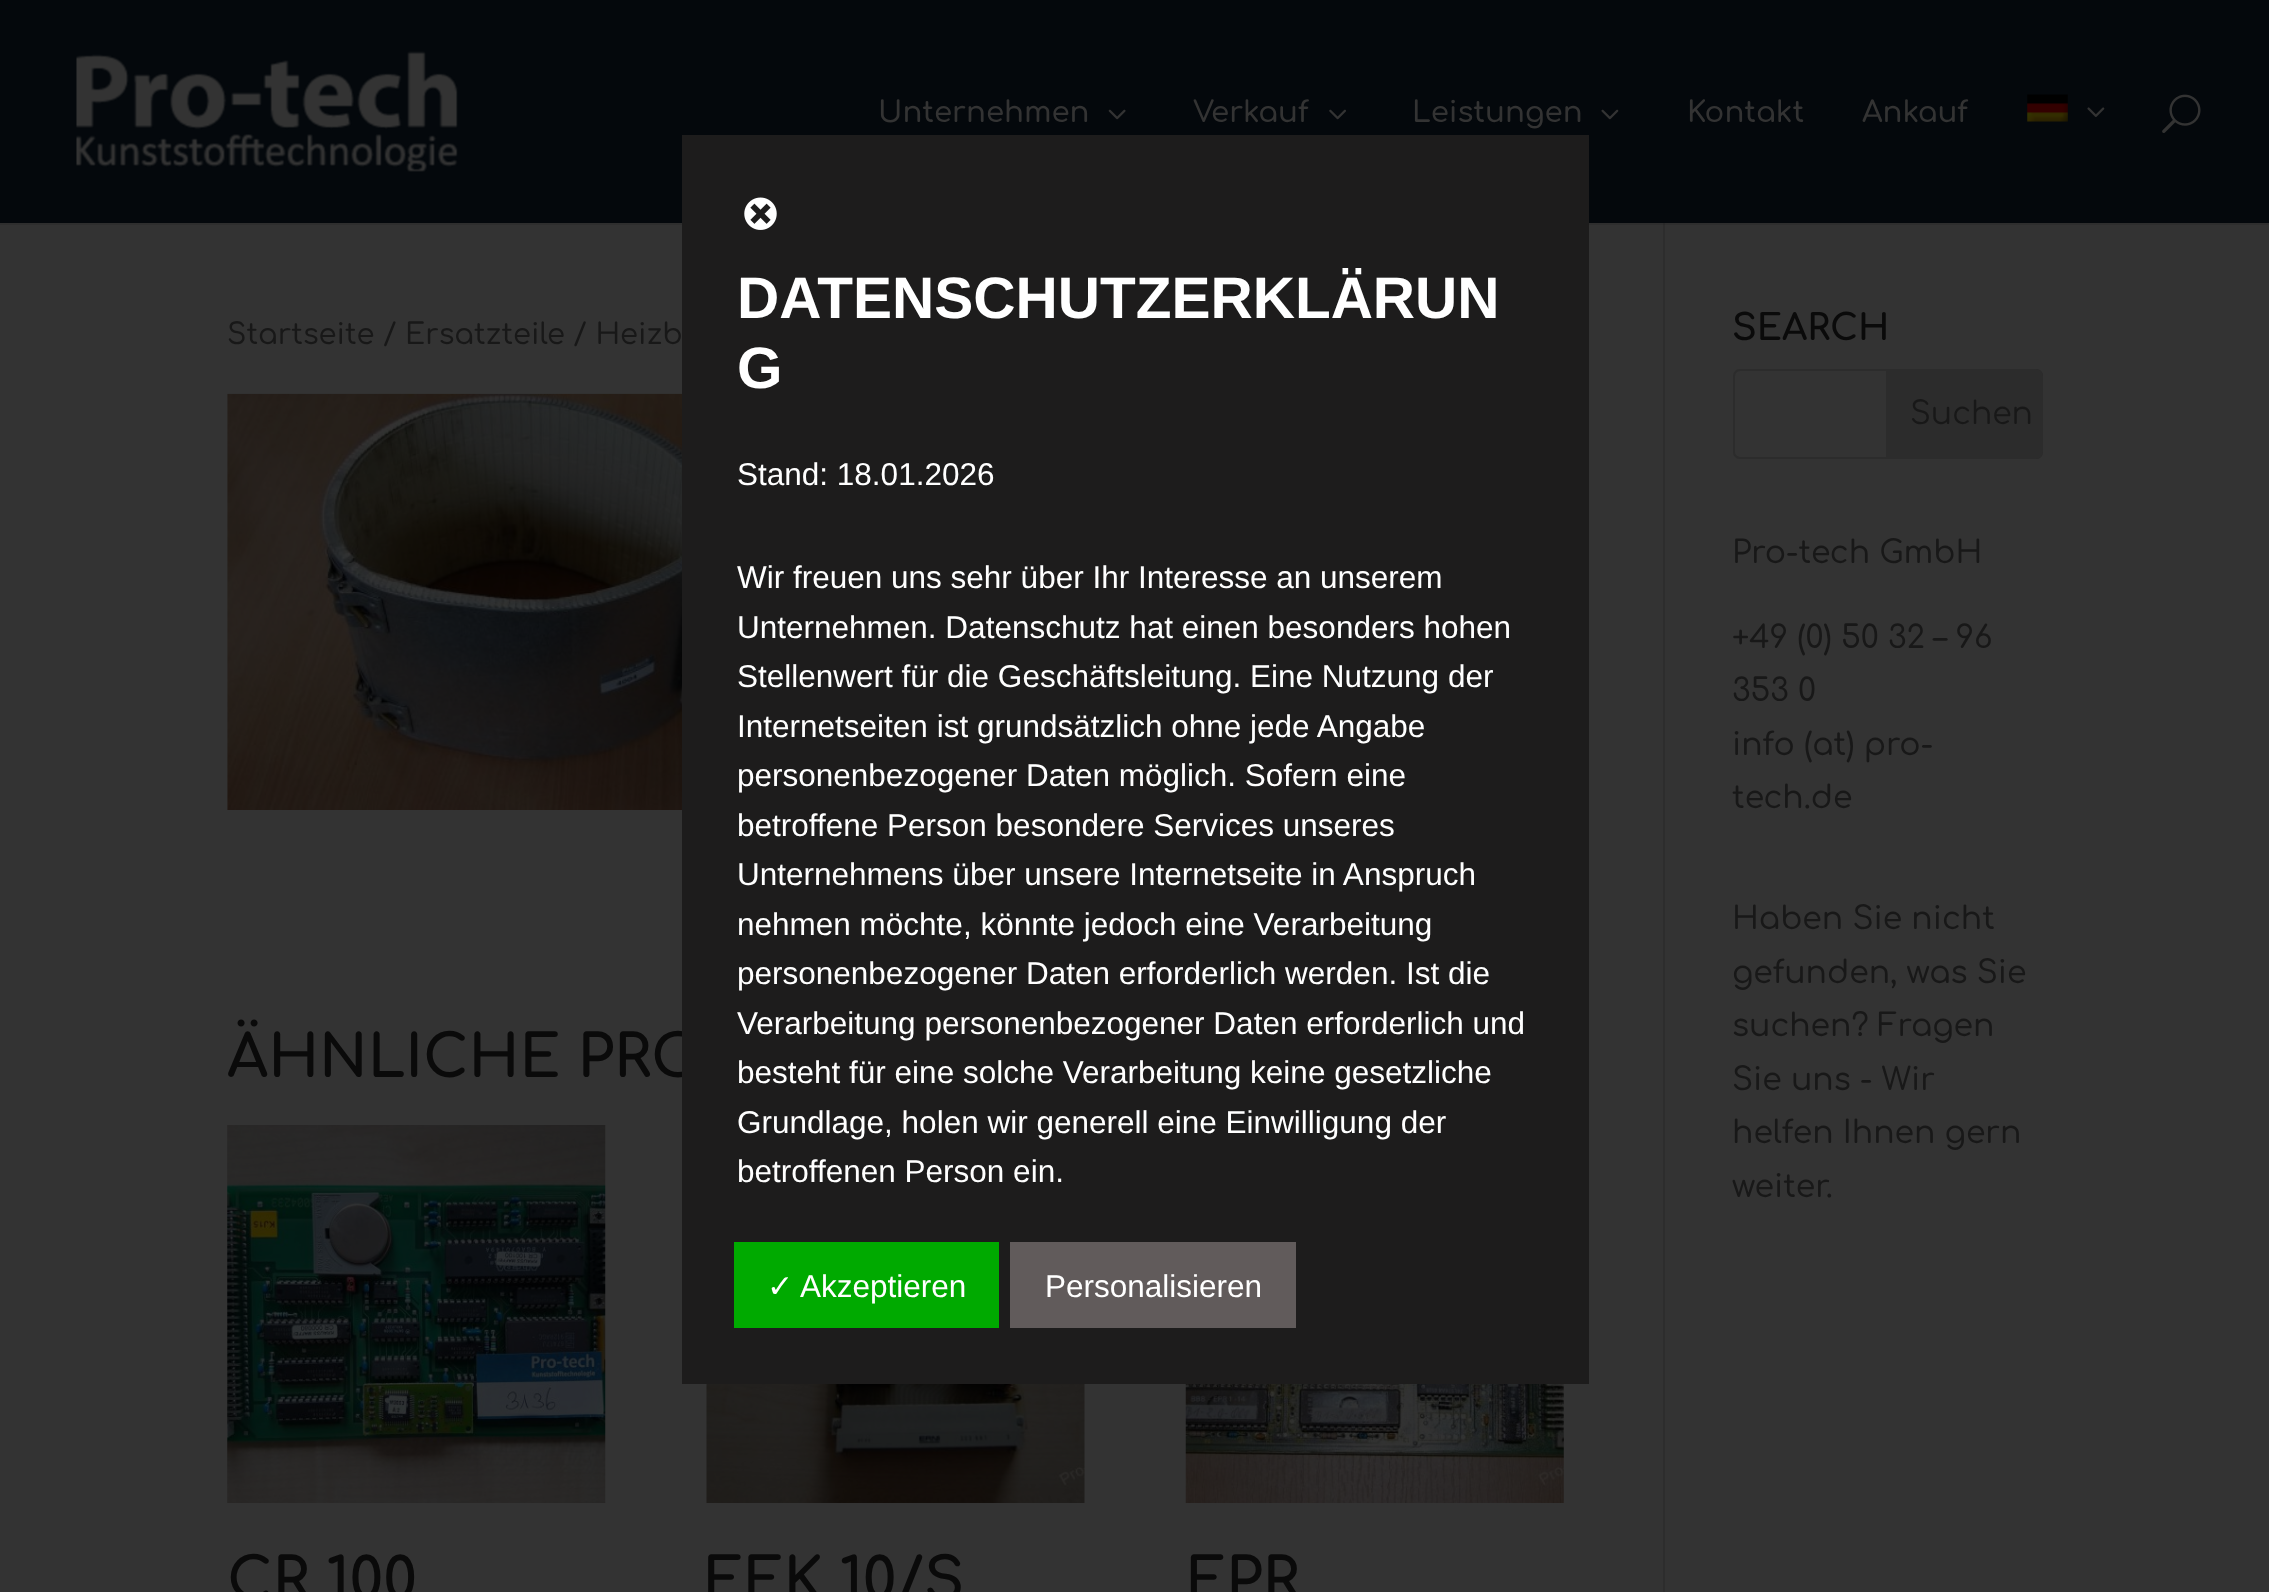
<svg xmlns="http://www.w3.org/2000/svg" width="2269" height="1592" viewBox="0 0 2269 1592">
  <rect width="100%" height="100%" fill="#333333"/>
  <rect x="0" y="223" width="2269" height="2" fill="#2e2e2e"/>
  <rect x="0" y="0" width="2269" height="223" fill="#04080c"/>
  <image x="76" y="51" width="382" height="121" href="img1.png"/>
  <text x="878" y="122" font-family="Comfortaa" font-size="29.25" font-weight="600" fill="#333333">Unternehmen</text>
  <image x="1108" y="109" width="18" height="11" href="img2.png"/>
  <text x="1193" y="122" font-family="Comfortaa" font-size="29.25" font-weight="600" fill="#333333">Verkauf</text>
  <image x="1329" y="109" width="17" height="11" href="img3.png"/>
  <text x="1412" y="122" font-family="Comfortaa" font-size="29.25" font-weight="600" fill="#333333">Leistungen</text>
  <image x="1601" y="109" width="18" height="11" href="img4.png"/>
  <text x="1687" y="122" font-family="Comfortaa" font-size="29.25" font-weight="600" fill="#333333">Kontakt</text>
  <text x="1862" y="122" font-family="Comfortaa" font-size="29.25" font-weight="600" fill="#333333">Ankauf</text>
  <image x="2027" y="94" width="41" height="28" href="img5.png"/>
  <image x="2087" y="107" width="18" height="10" href="img6.png"/>
  <image x="2162" y="94" width="39" height="39" href="img7.png"/>
  <rect x="1663" y="225" width="2" height="1367" fill="#2d2d2d"/>
  <rect x="1663" y="223" width="2" height="2" fill="#292929"/>
  <text x="227" y="344" font-family="Comfortaa" font-size="29" font-weight="500" fill="#181818">Startseite / Ersatzteile / Heizb</text>
  <image x="227" y="393" width="455" height="417" href="img8.png"/>
  <text x="227" y="1077" font-family="Comfortaa" font-size="58.5" font-weight="bold" fill="#0a0a0a">ÄHNLICHE PRO</text>
  <image x="227" y="1125" width="379" height="378" href="img9.png"/>
  <text x="227" y="1600" font-family="Comfortaa" font-size="58.5" font-weight="bold" fill="#0a0a0a">CR 100</text>
  <image x="706" y="1384" width="379" height="119" href="img10.png"/>
  <text x="706" y="1600" font-family="Comfortaa" font-size="58.5" font-weight="bold" fill="#0a0a0a">FEK 10/S</text>
  <image x="1185" y="1384" width="379" height="119" href="img11.png"/>
  <text x="1185" y="1600" font-family="Comfortaa" font-size="58.5" font-weight="bold" fill="#0a0a0a">EPR</text>
  <text x="1732" y="340" font-family="Comfortaa" font-size="36" font-weight="bold" fill="#0a0a0a">SEARCH</text>
  <rect x="1734" y="370" width="308" height="88" rx="6" fill="none" stroke="#2c2c2c" stroke-width="2"/>
  <path d="M1886 369H2036C2040 369 2043 372 2043 376V452C2043 456 2040 459 2036 459H1886Z" fill="#2c2c2c"/>
  <text x="1910" y="424" font-family="Comfortaa" font-size="31.5" fill="#181818">Suchen</text>
  <text x="1732" y="563" font-family="Comfortaa" font-size="31.5" font-weight="500" fill="#181818">Pro-tech GmbH</text>
  <text x="1732" y="648" font-family="Comfortaa" font-size="31.5" font-weight="500" fill="#181818">+49 (0) 50 32 – 96</text>
  <text x="1732" y="701" font-family="Comfortaa" font-size="31.5" font-weight="500" fill="#181818">353 0</text>
  <text x="1732" y="755" font-family="Comfortaa" font-size="31.5" font-weight="500" fill="#181818">info (at) pro-</text>
  <text x="1732" y="808" font-family="Comfortaa" font-size="31.5" font-weight="500" fill="#181818">tech.de</text>
  <text x="1732" y="929" font-family="Comfortaa" font-size="31.5" font-weight="500" fill="#181818">Haben Sie nicht</text>
  <text x="1732" y="983" font-family="Comfortaa" font-size="31.5" font-weight="500" fill="#181818">gefunden, was Sie</text>
  <text x="1732" y="1036" font-family="Comfortaa" font-size="31.5" font-weight="500" fill="#181818">suchen? Fragen</text>
  <text x="1732" y="1090" font-family="Comfortaa" font-size="31.5" font-weight="500" fill="#181818">Sie uns - Wir</text>
  <text x="1732" y="1143" font-family="Comfortaa" font-size="31.5" font-weight="500" fill="#181818">helfen Ihnen gern</text>
  <text x="1732" y="1197" font-family="Comfortaa" font-size="31.5" font-weight="500" fill="#181818">weiter.</text>
  <rect x="682" y="135" width="907" height="1249" fill="#1d1c1c"/>
  <image x="744" y="197" width="33" height="33" href="img12.png"/>
  <text x="737" y="318" font-family="Liberation Sans" font-size="58.5" font-weight="bold" fill="#ffffff">DATENSCHUTZERKLÄRUN</text>
  <text x="737" y="388" font-family="Liberation Sans" font-size="58.5" font-weight="bold" fill="#ffffff">G</text>
  <text x="737" y="485" font-family="Liberation Sans" font-size="31.5" fill="#ffffff">Stand: 18.01.2026</text>
  <text x="737" y="588" font-family="Liberation Sans" font-size="31.5" fill="#ffffff">Wir freuen uns sehr über Ihr Interesse an unserem</text>
  <text x="737" y="638" font-family="Liberation Sans" font-size="31.5" fill="#ffffff">Unternehmen. Datenschutz hat einen besonders hohen</text>
  <text x="737" y="687" font-family="Liberation Sans" font-size="31.5" fill="#ffffff">Stellenwert für die Geschäftsleitung. Eine Nutzung der</text>
  <text x="737" y="737" font-family="Liberation Sans" font-size="31.5" fill="#ffffff">Internetseiten ist grundsätzlich ohne jede Angabe</text>
  <text x="737" y="786" font-family="Liberation Sans" font-size="31.5" fill="#ffffff">personenbezogener Daten möglich. Sofern eine</text>
  <text x="737" y="836" font-family="Liberation Sans" font-size="31.5" fill="#ffffff">betroffene Person besondere Services unseres</text>
  <text x="737" y="885" font-family="Liberation Sans" font-size="31.5" fill="#ffffff">Unternehmens über unsere Internetseite in Anspruch</text>
  <text x="737" y="935" font-family="Liberation Sans" font-size="31.5" fill="#ffffff">nehmen möchte, könnte jedoch eine Verarbeitung</text>
  <text x="737" y="984" font-family="Liberation Sans" font-size="31.5" fill="#ffffff">personenbezogener Daten erforderlich werden. Ist die</text>
  <text x="737" y="1034" font-family="Liberation Sans" font-size="31.5" fill="#ffffff">Verarbeitung personenbezogener Daten erforderlich und</text>
  <text x="737" y="1083" font-family="Liberation Sans" font-size="31.5" fill="#ffffff">besteht für eine solche Verarbeitung keine gesetzliche</text>
  <text x="737" y="1133" font-family="Liberation Sans" font-size="31.5" fill="#ffffff">Grundlage, holen wir generell eine Einwilligung der</text>
  <text x="737" y="1182" font-family="Liberation Sans" font-size="31.5" fill="#ffffff">betroffenen Person ein.</text>
  <rect x="734" y="1242" width="265" height="86" fill="#00aa00"/>
  <text x="767" y="1297" font-family="DejaVu Sans" font-size="31.5" fill="#ffffff">✓</text>
  <text x="800" y="1297" font-family="Liberation Sans" font-size="31.5" fill="#ffffff">Akzeptieren</text>
  <rect x="1010" y="1242" width="286" height="86" fill="#615b5b"/>
  <text x="1045" y="1297" font-family="Liberation Sans" font-size="31.5" fill="#ffffff">Personalisieren</text>
</svg>
